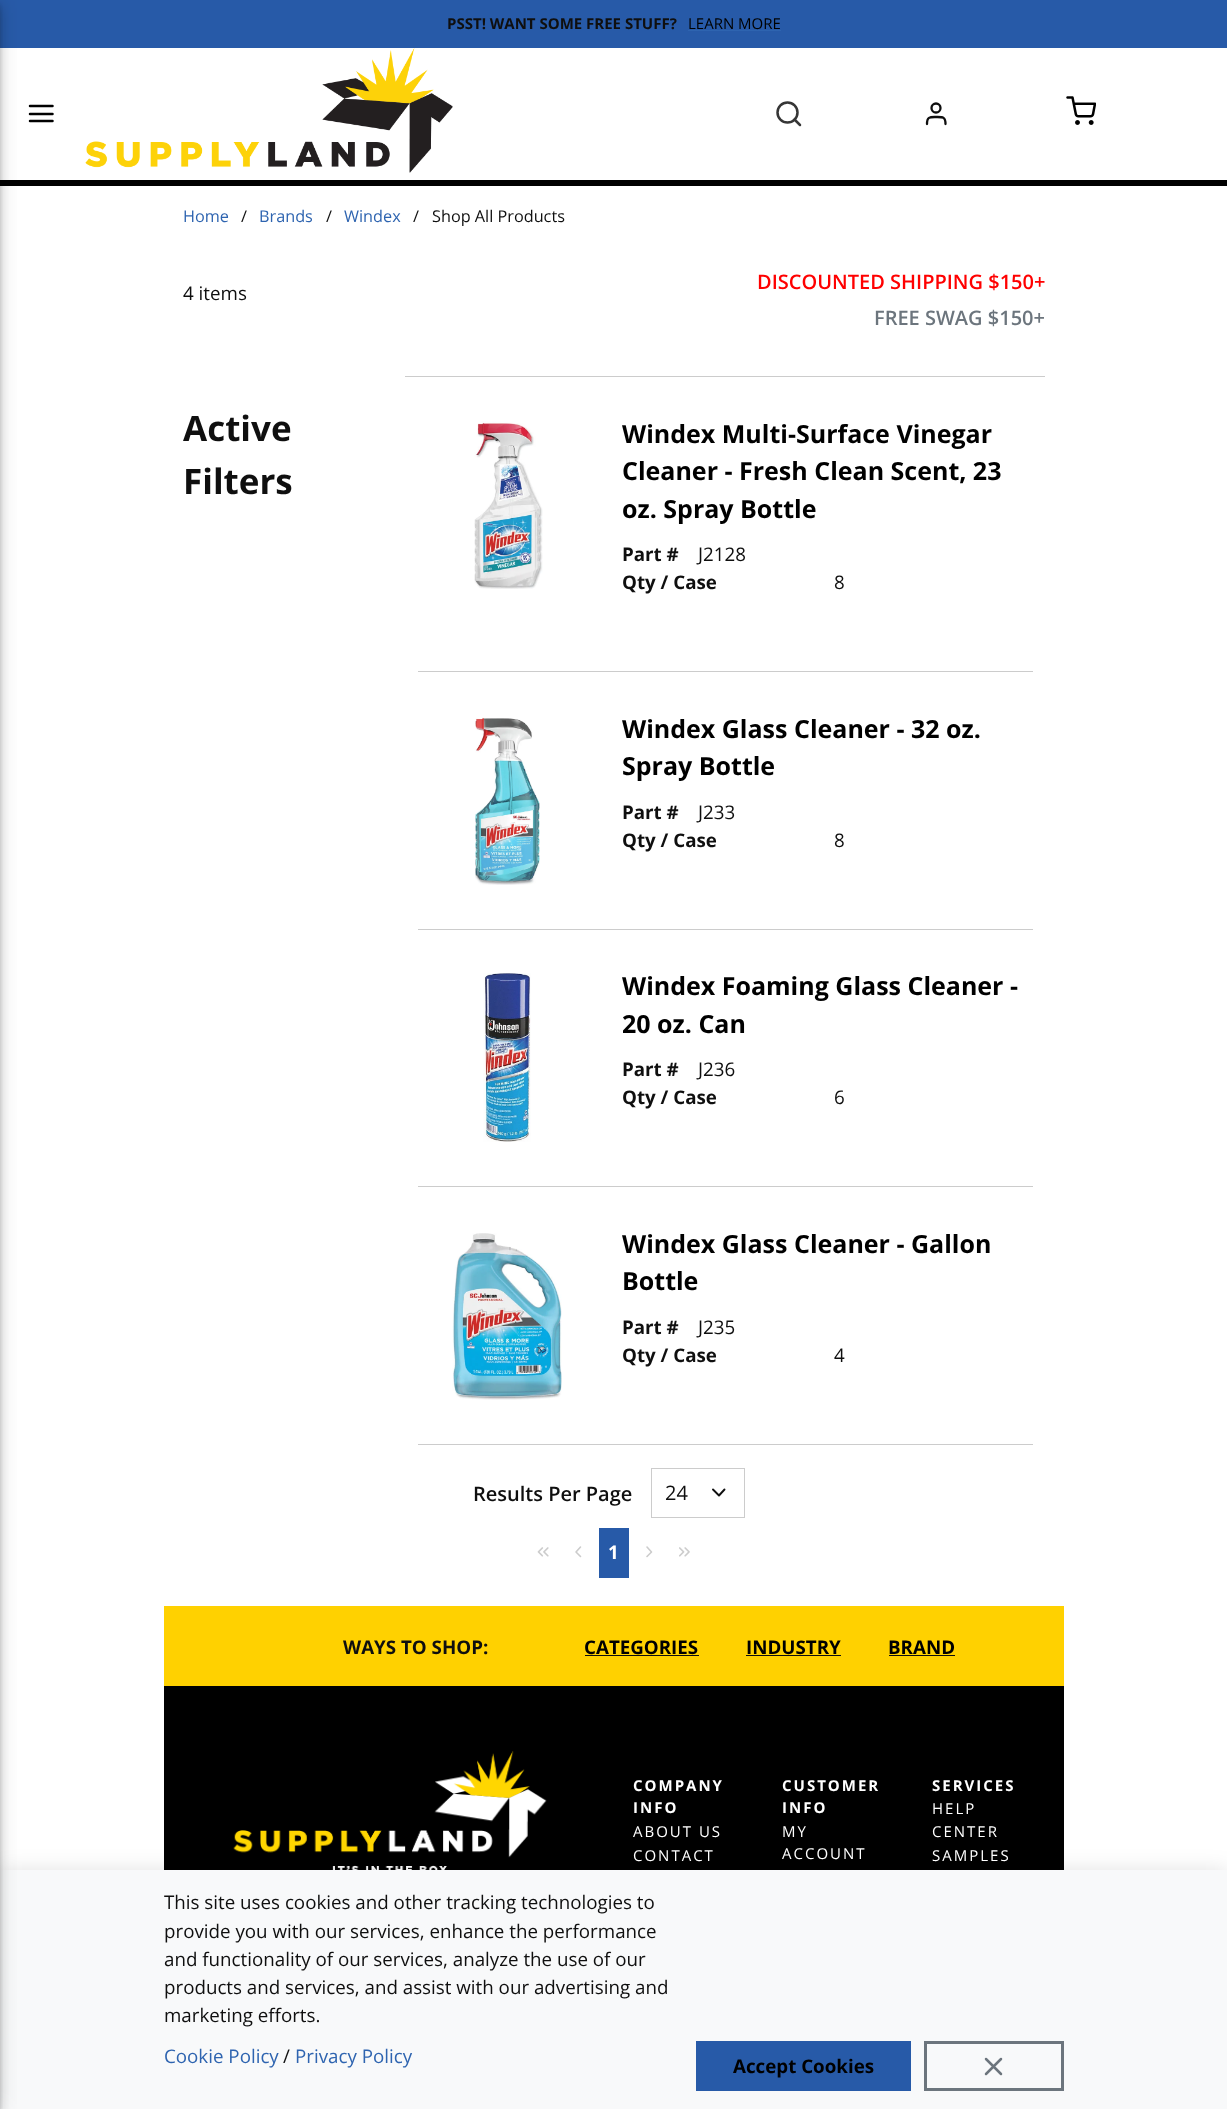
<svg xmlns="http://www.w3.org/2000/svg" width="1227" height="2109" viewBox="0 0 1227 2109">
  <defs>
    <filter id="blur1" x="-50%" y="-200%" width="200%" height="500%"><feGaussianBlur stdDeviation="11"/></filter>
    <filter id="blur2" x="-50%" y="-200%" width="200%" height="500%"><feGaussianBlur stdDeviation="6"/></filter>
    <filter id="blur3" x="-50%" y="-200%" width="200%" height="500%"><feGaussianBlur stdDeviation="3"/></filter>
  </defs>
  <rect width="100%" height="100%" fill="#ffffff"/>
  <rect x="0" y="180" width="1227" height="6" fill="#000000"/>
  <rect x="0" y="0" width="1227" height="48" fill="#275aa8"/>
  <path d="M30 114H52.5M30 106H52.5M30 121H52.5" fill="none" stroke="#000000" stroke-width="2.5" stroke-linecap="round" stroke-linejoin="round"/>
  <rect x="164" y="1686" width="900" height="184" fill="#000000"/>
  <image x="233" y="1751" width="314" height="119" href="img9.png"/>
  <rect x="0" y="1871" width="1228" height="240" fill="#000000" fill-opacity="0.12" filter="url(#blur1)"/>
  <rect x="0" y="1870" width="1227" height="239" fill="#f8f9fa"/>
  <rect x="-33" y="1" width="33" height="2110" fill="#000000" fill-opacity="0.12" filter="url(#blur1)"/>
  <rect x="-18" y="8" width="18" height="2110" fill="#000000" fill-opacity="0.14" filter="url(#blur2)"/>
  <rect x="-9" y="5" width="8" height="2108" fill="#000000" fill-opacity="0.2" filter="url(#blur3)"/>
  <text x="447" y="29" font-family="Open Sans" font-size="15" font-weight="bold" fill="#0f0f0f">PSST! WANT SOME FREE STUFF?</text>
  <text x="688" y="29" font-family="Open Sans" font-size="15" fill="#000000">LEARN MORE</text>
  <rect x="688" y="30" width="93" height="1" fill="#2e64b0"/>
  <image x="85" y="48" width="368" height="125" href="img1.png"/>
  <circle cx="787.5" cy="112.5" r="10" fill="none" stroke="#363636" stroke-width="2.5"/>
  <path d="M800 125L794.5 119.5" fill="none" stroke="#363636" stroke-width="2.5" stroke-linecap="round" stroke-linejoin="round"/>
  <path d="M945.5 124C945.5 116.5 942.5 117 936 117C930 117 927 116.5 927 124" fill="none" stroke="#0f0f0f" stroke-width="2.3" stroke-linecap="round" stroke-linejoin="round"/>
  <circle cx="936" cy="108" r="4.5" fill="none" stroke="#0f0f0f" stroke-width="2.3"/>
  <image x="1066" y="96" width="30" height="29" href="img2.png"/>
  <text x="183" y="222" font-family="Open Sans" font-size="16.25" fill="#2e64b0">Home</text>
  <text x="241" y="222" font-family="Open Sans" font-size="16.25" fill="#0f0f0f">/</text>
  <text x="259" y="222" font-family="Open Sans" font-size="16.25" fill="#2e64b0">Brands</text>
  <text x="326" y="222" font-family="Open Sans" font-size="16.25" fill="#0f0f0f">/</text>
  <text x="344" y="222" font-family="Open Sans" font-size="16.25" fill="#2e64b0">Windex</text>
  <text x="413" y="222" font-family="Open Sans" font-size="16.25" fill="#0f0f0f">/</text>
  <text x="432" y="222" font-family="Open Sans" font-size="16.25" fill="#0f0f0f">Shop All Products</text>
  <text x="183" y="300" font-family="Open Sans" font-size="18.75" fill="#0f0f0f">4 items</text>
  <text x="757" y="289" font-family="Open Sans" font-size="20" font-weight="600" fill="#ff0000">DISCOUNTED SHIPPING $150+</text>
  <text x="874" y="325" font-family="Open Sans" font-size="20" font-weight="600" fill="#6c757d">FREE SWAG $150+</text>
  <text x="183" y="441" font-family="Open Sans" font-size="35" font-weight="bold" fill="#0f0f0f">Active</text>
  <text x="183" y="494" font-family="Open Sans" font-size="35" font-weight="bold" fill="#0f0f0f">Filters</text>
  <rect x="405" y="376" width="640" height="1" fill="#cccccc"/>
  <rect x="418" y="671" width="615" height="1" fill="#cccccc"/>
  <image x="474" y="421" width="69" height="168" href="img3.png"/>
  <text x="622" y="443" font-family="Open Sans" font-size="25" font-weight="bold" fill="#000000">Windex Multi-Surface Vinegar</text>
  <text x="622" y="480" font-family="Open Sans" font-size="25" font-weight="bold" fill="#000000">Cleaner - Fresh Clean Scent, 23</text>
  <text x="622" y="518" font-family="Open Sans" font-size="25" font-weight="bold" fill="#000000">oz. Spray Bottle</text>
  <text x="622" y="561" font-family="Open Sans" font-size="18.75" font-weight="bold" fill="#0f0f0f">Part #</text>
  <text x="698" y="561" font-family="Open Sans" font-size="18.75" fill="#0f0f0f">J2128</text>
  <text x="622" y="589" font-family="Open Sans" font-size="18.75" font-weight="bold" fill="#0f0f0f">Qty / Case</text>
  <text x="834" y="589" font-family="Open Sans" font-size="18.75" fill="#0f0f0f">8</text>
  <rect x="418" y="929" width="615" height="1" fill="#cccccc"/>
  <image x="475" y="717" width="65" height="168" href="img4.png"/>
  <text x="622" y="738" font-family="Open Sans" font-size="25" font-weight="bold" fill="#000000">Windex Glass Cleaner - 32 oz.</text>
  <text x="622" y="775" font-family="Open Sans" font-size="25" font-weight="bold" fill="#000000">Spray Bottle</text>
  <text x="622" y="819" font-family="Open Sans" font-size="18.75" font-weight="bold" fill="#0f0f0f">Part #</text>
  <text x="698" y="819" font-family="Open Sans" font-size="18.75" fill="#0f0f0f">J233</text>
  <text x="622" y="847" font-family="Open Sans" font-size="18.75" font-weight="bold" fill="#0f0f0f">Qty / Case</text>
  <text x="834" y="847" font-family="Open Sans" font-size="18.75" fill="#0f0f0f">8</text>
  <rect x="418" y="1186" width="615" height="1" fill="#cccccc"/>
  <image x="483" y="973" width="48" height="169" href="img5.png"/>
  <text x="622" y="995" font-family="Open Sans" font-size="25" font-weight="bold" fill="#000000">Windex Foaming Glass Cleaner -</text>
  <text x="622" y="1033" font-family="Open Sans" font-size="25" font-weight="bold" fill="#000000">20 oz. Can</text>
  <text x="622" y="1076" font-family="Open Sans" font-size="18.75" font-weight="bold" fill="#0f0f0f">Part #</text>
  <text x="698" y="1076" font-family="Open Sans" font-size="18.75" fill="#0f0f0f">J236</text>
  <text x="622" y="1104" font-family="Open Sans" font-size="18.75" font-weight="bold" fill="#0f0f0f">Qty / Case</text>
  <text x="834" y="1104" font-family="Open Sans" font-size="18.75" fill="#0f0f0f">6</text>
  <rect x="418" y="1444" width="615" height="1" fill="#cccccc"/>
  <image x="452" y="1233" width="110" height="167" href="img6.png"/>
  <text x="622" y="1253" font-family="Open Sans" font-size="25" font-weight="bold" fill="#000000">Windex Glass Cleaner - Gallon</text>
  <text x="622" y="1290" font-family="Open Sans" font-size="25" font-weight="bold" fill="#000000">Bottle</text>
  <text x="622" y="1334" font-family="Open Sans" font-size="18.75" font-weight="bold" fill="#0f0f0f">Part #</text>
  <text x="698" y="1334" font-family="Open Sans" font-size="18.75" fill="#0f0f0f">J235</text>
  <text x="622" y="1362" font-family="Open Sans" font-size="18.75" font-weight="bold" fill="#0f0f0f">Qty / Case</text>
  <text x="834" y="1362" font-family="Open Sans" font-size="18.75" fill="#0f0f0f">4</text>
  <text x="473" y="1501" font-family="Open Sans" font-size="20" font-weight="600" fill="#0f0f0f">Results Per Page</text>
  <rect x="651.5" y="1468.5" width="93" height="49" fill="none" stroke="#cccccc"/>
  <text x="665" y="1500" font-family="Open Sans" font-size="20" fill="#0f0f0f">24</text>
  <path d="M713 1489.5L719 1495.5L724.5 1489.5" fill="none" stroke="#0f0f0f" stroke-width="1.9" stroke-linecap="round" stroke-linejoin="round"/>
  <image x="537" y="1547" width="12" height="10" href="img7.png"/>
  <path d="M580.5 1556.5L576 1552L580.5 1547" fill="none" stroke="#cccccc" stroke-width="1.6" stroke-linecap="round" stroke-linejoin="round"/>
  <rect x="599" y="1528" width="30" height="50" fill="#275aa8"/>
  <text x="608" y="1559" font-family="Open Sans" font-size="18.75" font-weight="bold" fill="#ffffff">1</text>
  <path d="M647 1556.5L651.5 1552L647 1547" fill="none" stroke="#cccccc" stroke-width="1.6" stroke-linecap="round" stroke-linejoin="round"/>
  <image x="679" y="1547" width="11" height="10" href="img8.png"/>
  <rect x="164" y="1606" width="900" height="80" fill="#ffd100"/>
  <text x="343" y="1654" font-family="Open Sans" font-size="18.75" font-weight="bold" fill="#0f0f0f">WAYS TO SHOP:</text>
  <text x="584" y="1654" font-family="Open Sans" font-size="18.75" font-weight="bold" fill="#000000">CATEGORIES</text>
  <rect x="585" y="1655" width="114" height="1" fill="#0f0f0f"/>
  <text x="746" y="1654" font-family="Open Sans" font-size="18.75" font-weight="bold" fill="#000000">INDUSTRY</text>
  <rect x="746" y="1655" width="95" height="1" fill="#0f0f0f"/>
  <text x="888" y="1654" font-family="Open Sans" font-size="18.75" font-weight="bold" fill="#000000">BRAND</text>
  <rect x="889" y="1655" width="66" height="1" fill="#0f0f0f"/>
  <text x="633" y="1791" font-family="Open Sans" font-size="15" font-weight="bold" letter-spacing="2" fill="#ffffff">COMPANY</text>
  <text x="633" y="1813" font-family="Open Sans" font-size="15" font-weight="bold" letter-spacing="2" fill="#ffffff">INFO</text>
  <text x="633" y="1837" font-family="Open Sans" font-size="15" letter-spacing="2" fill="#ffffff">ABOUT US</text>
  <text x="633" y="1861" font-family="Open Sans" font-size="15" letter-spacing="2" fill="#ffffff">CONTACT</text>
  <text x="782" y="1791" font-family="Open Sans" font-size="15" font-weight="bold" letter-spacing="2" fill="#ffffff">CUSTOMER</text>
  <text x="782" y="1813" font-family="Open Sans" font-size="15" font-weight="bold" letter-spacing="2" fill="#ffffff">INFO</text>
  <text x="782" y="1837" font-family="Open Sans" font-size="15" letter-spacing="2" fill="#ffffff">MY</text>
  <text x="782" y="1859" font-family="Open Sans" font-size="15" letter-spacing="2" fill="#ffffff">ACCOUNT</text>
  <text x="932" y="1791" font-family="Open Sans" font-size="15" font-weight="bold" letter-spacing="2" fill="#ffffff">SERVICES</text>
  <text x="932" y="1814" font-family="Open Sans" font-size="15" letter-spacing="2" fill="#ffffff">HELP</text>
  <text x="932" y="1837" font-family="Open Sans" font-size="15" letter-spacing="2" fill="#ffffff">CENTER</text>
  <text x="932" y="1861" font-family="Open Sans" font-size="15" letter-spacing="2" fill="#ffffff">SAMPLES</text>
  <text x="164" y="1909" font-family="Open Sans" font-size="18.75" fill="#0f0f0f">This site uses cookies and other tracking technologies to</text>
  <text x="164" y="1938" font-family="Open Sans" font-size="18.75" fill="#0f0f0f">provide you with our services, enhance the performance</text>
  <text x="164" y="1966" font-family="Open Sans" font-size="18.75" fill="#0f0f0f">and functionality of our services, analyze the use of our</text>
  <text x="164" y="1994" font-family="Open Sans" font-size="18.75" fill="#0f0f0f">products and services, and assist with our advertising and</text>
  <text x="164" y="2022" font-family="Open Sans" font-size="18.75" fill="#0f0f0f">marketing efforts.</text>
  <text x="164" y="2063" font-family="Open Sans" font-size="18.75" fill="#2e64b0">Cookie Policy</text>
  <text x="283" y="2063" font-family="Open Sans" font-size="18.75" fill="#0f0f0f">/</text>
  <text x="295" y="2063" font-family="Open Sans" font-size="18.75" fill="#2e64b0">Privacy Policy</text>
  <rect x="696" y="2041" width="215" height="50" fill="#275aa8"/>
  <text x="733" y="2073" font-family="Open Sans" font-size="18.75" font-weight="bold" fill="#000000">Accept Cookies</text>
  <rect x="925.5" y="2042.5" width="137" height="47" fill="none" stroke="#6c757d" stroke-width="3"/>
  <path d="M1001 2059L986 2074M986 2059L1001 2074" fill="none" stroke="#6c757d" stroke-width="2.5" stroke-linecap="round" stroke-linejoin="round"/>
</svg>
